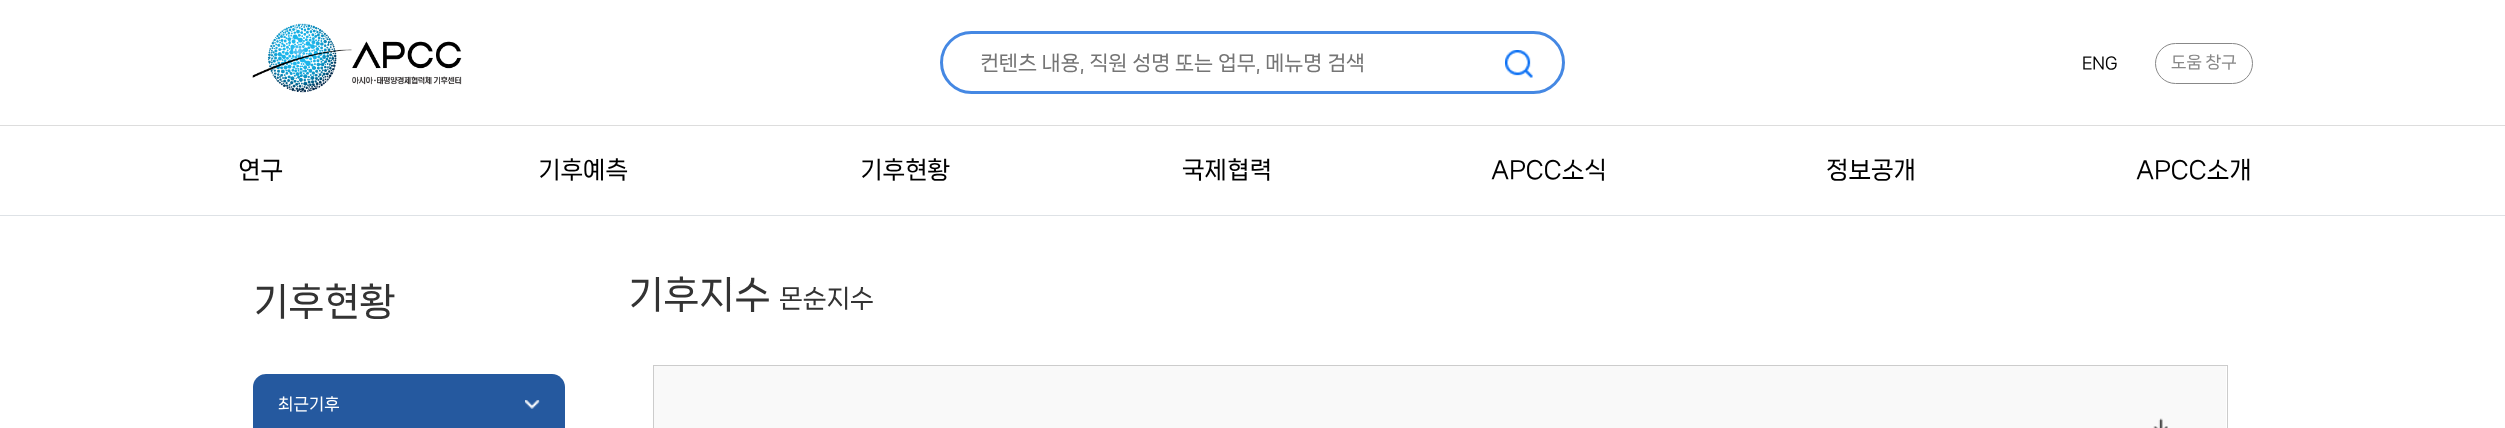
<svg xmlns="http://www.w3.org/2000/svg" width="2505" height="428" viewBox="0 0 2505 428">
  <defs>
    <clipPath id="clip1"><rect x="980" y="51" width="483" height="23"/></clipPath>
  </defs>
  <rect width="100%" height="100%" fill="#ffffff"/>
  <rect x="0" y="125" width="2505" height="1" fill="#dddddd"/>
  <image x="252" y="23" width="210" height="70" href="img1.png"/>
  <rect x="941.5" y="32.5" width="622" height="60" rx="30" fill="none" stroke="#4588e3" stroke-width="3"/>
  <g clip-path="url(#clip1)">
    <text x="980" y="69" font-family="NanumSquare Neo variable" font-size="20" fill="#757575">컨텐츠 내용, 직원 성명 또는 업무, 메뉴명 검색</text>
  </g>
  <image x="1505" y="50" width="28" height="28" href="img2.png"/>
  <text x="2082" y="68" font-family="NanumSquare Neo variable" font-size="16.25" fill="#000000">ENG</text>
  <rect x="2155.5" y="43.5" width="97" height="40" rx="20" fill="none" stroke="#888888"/>
  <text x="2171" y="67" font-family="NanumSquare Neo variable" font-size="16.25" fill="#888888">도움 창구</text>
  <rect x="0" y="215" width="2505" height="1" fill="#dee2e6"/>
  <text x="238" y="177" font-family="NanumSquare Neo variable" font-size="23.75" fill="#000000">연구</text>
  <text x="538" y="177" font-family="NanumSquare Neo variable" font-size="23.75" fill="#000000">기후예측</text>
  <text x="860" y="177" font-family="NanumSquare Neo variable" font-size="23.75" fill="#000000">기후현황</text>
  <text x="1182" y="177" font-family="NanumSquare Neo variable" font-size="23.75" fill="#000000">국제협력</text>
  <text x="1491" y="177" font-family="NanumSquare Neo variable" font-size="23.75" fill="#000000">APCC소식</text>
  <text x="1826" y="177" font-family="NanumSquare Neo variable" font-size="23.75" fill="#000000">정보공개</text>
  <text x="2136" y="177" font-family="NanumSquare Neo variable" font-size="23.75" fill="#000000">APCC소개</text>
  <text x="253" y="313" font-family="NanumSquare Neo variable" font-size="37.5" fill="#333333">기후현황</text>
  <path d="M266 374H552C559 374 565 380 565 387V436H253V387C253 380 259 374 266 374Z" fill="#25599f"/>
  <image x="525" y="400" width="15" height="9" href="img3.png"/>
  <text x="278" y="409" font-family="NanumSquare Neo variable" font-size="16.25" fill="#ffffff">최근기후</text>
  <text x="628" y="306" font-family="NanumSquare Neo variable" font-size="37.5" fill="#333333">기후지수</text>
  <text x="779" y="306" font-family="NanumSquare Neo variable" font-size="25" fill="#333333">몬순지수</text>
  <rect x="653.5" y="365.5" width="1574" height="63" fill="none" stroke="#cccccc"/>
  <rect x="654" y="366" width="1572" height="62" fill="#f9f9f9"/>
  <image x="2153" y="418" width="15" height="10" href="img4.png"/>
</svg>
